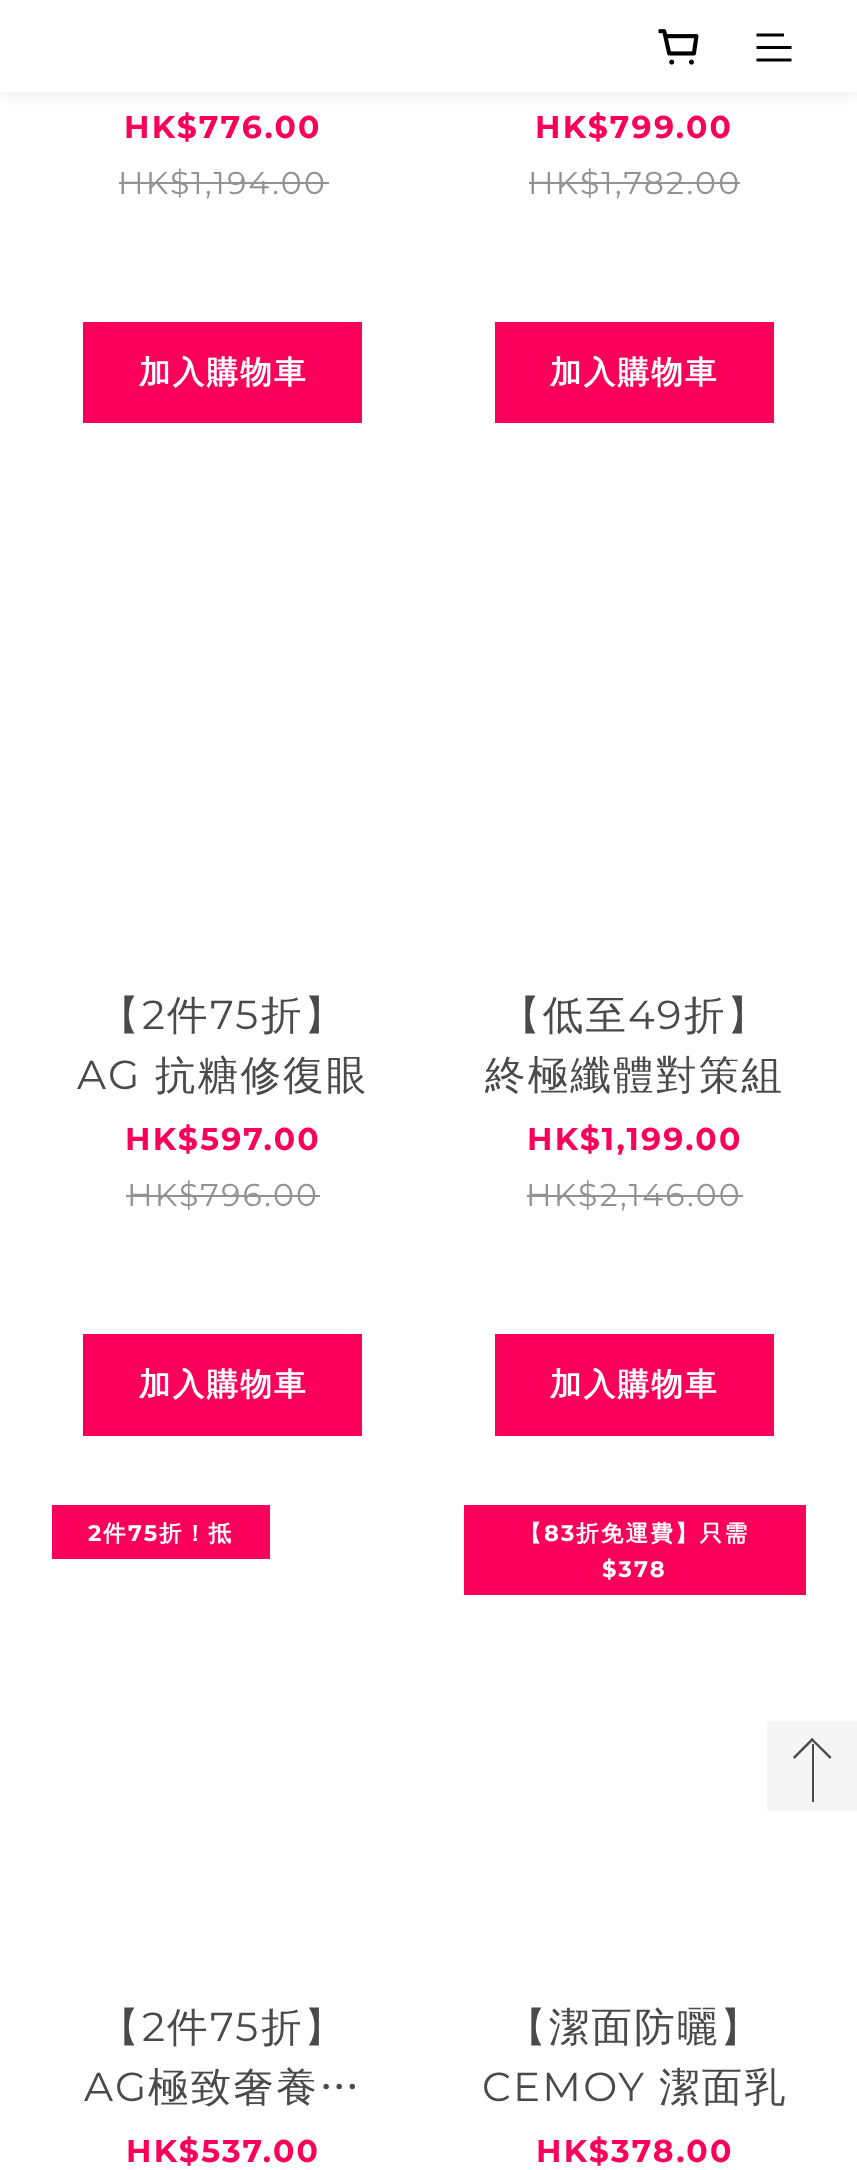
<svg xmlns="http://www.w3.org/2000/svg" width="857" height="2170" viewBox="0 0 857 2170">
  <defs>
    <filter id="blur1" x="-50%" y="-200%" width="200%" height="500%"><feGaussianBlur stdDeviation="7"/></filter>
  </defs>
  <rect width="100%" height="100%" fill="#ffffff"/>
  <rect x="0" y="5" width="857" height="92" fill="#000000" fill-opacity="0.06" filter="url(#blur1)"/>
  <rect x="0" y="0" width="857" height="92" fill="#ffffff"/>
  <image x="658" y="29" width="41" height="36" href="img1.png"/>
  <path d="M791.5 49V46H756.5V49ZM784 36.5V33.5H756.5V36.5ZM791.5 61.5V58.5H756.5V61.5Z" fill="#000000"/>
  <text x="124" y="138" font-family="Montserrat" font-size="31.5" font-weight="bold" letter-spacing="2.25" fill="#fa005a">HK$776.00</text>
  <text x="118" y="194" font-family="Montserrat" font-size="31.5" letter-spacing="2.25" fill="#929292">HK$1,194.00</text>
  <rect x="119" y="182" width="210" height="2" fill="#929292"/>
  <rect x="83" y="322" width="279" height="101" fill="#fa005a"/>
  <text x="139" y="383" font-family="WenQuanYi Zen Hei" font-size="31.5" font-weight="bold" letter-spacing="2.25" fill="#ffffff">加入購物車</text>
  <text x="535" y="138" font-family="Montserrat" font-size="31.5" font-weight="bold" letter-spacing="2.25" fill="#fa005a">HK$799.00</text>
  <text x="528" y="194" font-family="Montserrat" font-size="31.5" letter-spacing="2.25" fill="#929292">HK$1,782.00</text>
  <rect x="529" y="182" width="211" height="2" fill="#929292"/>
  <rect x="495" y="322" width="279" height="101" fill="#fa005a"/>
  <text x="550" y="383" font-family="WenQuanYi Zen Hei" font-size="31.5" font-weight="bold" letter-spacing="2.25" fill="#ffffff">加入購物車</text>
  <text x="99" y="1029" font-family="WenQuanYi Zen Hei" font-size="40.5" font-weight="500" letter-spacing="2.25" fill="#4a4a4a">【</text>
  <text x="142" y="1029" font-family="Montserrat" font-size="40.5" letter-spacing="2.25" fill="#4a4a4a">2</text>
  <text x="167" y="1029" font-family="WenQuanYi Zen Hei" font-size="40.5" font-weight="500" letter-spacing="2.25" fill="#4a4a4a">件</text>
  <text x="210" y="1029" font-family="Montserrat" font-size="40.5" letter-spacing="2.25" fill="#4a4a4a">75</text>
  <text x="261" y="1029" font-family="WenQuanYi Zen Hei" font-size="40.5" font-weight="500" letter-spacing="2.25" fill="#4a4a4a">折】</text>
  <text x="77" y="1089" font-family="Montserrat" font-size="40.5" letter-spacing="2.25" fill="#4a4a4a">AG</text>
  <text x="155" y="1089" font-family="WenQuanYi Zen Hei" font-size="40.5" font-weight="500" letter-spacing="2.25" fill="#4a4a4a">抗糖修復眼</text>
  <text x="125" y="1150" font-family="Montserrat" font-size="31.5" font-weight="bold" letter-spacing="2.25" fill="#fa005a">HK$597.00</text>
  <text x="127" y="1206" font-family="Montserrat" font-size="31.5" letter-spacing="2.25" fill="#929292">HK$796.00</text>
  <rect x="126" y="1195" width="194" height="2" fill="#929292"/>
  <rect x="83" y="1334" width="279" height="102" fill="#fa005a"/>
  <text x="139" y="1395" font-family="WenQuanYi Zen Hei" font-size="31.5" font-weight="bold" letter-spacing="2.25" fill="#ffffff">加入購物車</text>
  <text x="500" y="1029" font-family="WenQuanYi Zen Hei" font-size="40.5" font-weight="500" letter-spacing="2.25" fill="#4a4a4a">【低至</text>
  <text x="628" y="1029" font-family="Montserrat" font-size="40.5" letter-spacing="2.25" fill="#4a4a4a">49</text>
  <text x="684" y="1029" font-family="WenQuanYi Zen Hei" font-size="40.5" font-weight="500" letter-spacing="2.25" fill="#4a4a4a">折】</text>
  <text x="485" y="1089" font-family="WenQuanYi Zen Hei" font-size="40.5" font-weight="500" letter-spacing="2.25" fill="#4a4a4a">終極纖體對策組</text>
  <text x="527" y="1150" font-family="Montserrat" font-size="31.5" font-weight="bold" letter-spacing="2.25" fill="#fa005a">HK$1,199.00</text>
  <text x="526" y="1206" font-family="Montserrat" font-size="31.5" letter-spacing="2.25" fill="#929292">HK$2,146.00</text>
  <rect x="527" y="1195" width="216" height="2" fill="#929292"/>
  <rect x="495" y="1334" width="279" height="102" fill="#fa005a"/>
  <text x="550" y="1395" font-family="WenQuanYi Zen Hei" font-size="31.5" font-weight="bold" letter-spacing="2.25" fill="#ffffff">加入購物車</text>
  <rect x="52" y="1505" width="218" height="54" fill="#fa005a"/>
  <text x="88" y="1541" font-family="Montserrat" font-size="22.5" font-weight="bold" letter-spacing="2.25" fill="#ffffff">2</text>
  <text x="103" y="1541" font-family="WenQuanYi Zen Hei" font-size="22.5" font-weight="bold" letter-spacing="2.25" fill="#ffffff">件</text>
  <text x="128" y="1541" font-family="Montserrat" font-size="22.5" font-weight="bold" letter-spacing="2.25" fill="#ffffff">75</text>
  <text x="159" y="1541" font-family="WenQuanYi Zen Hei" font-size="22.5" font-weight="bold" letter-spacing="2.25" fill="#ffffff">折！抵</text>
  <text x="99" y="2041" font-family="WenQuanYi Zen Hei" font-size="40.5" font-weight="500" letter-spacing="2.25" fill="#4a4a4a">【</text>
  <text x="142" y="2041" font-family="Montserrat" font-size="40.5" letter-spacing="2.25" fill="#4a4a4a">2</text>
  <text x="167" y="2041" font-family="WenQuanYi Zen Hei" font-size="40.5" font-weight="500" letter-spacing="2.25" fill="#4a4a4a">件</text>
  <text x="210" y="2041" font-family="Montserrat" font-size="40.5" letter-spacing="2.25" fill="#4a4a4a">75</text>
  <text x="261" y="2041" font-family="WenQuanYi Zen Hei" font-size="40.5" font-weight="500" letter-spacing="2.25" fill="#4a4a4a">折】</text>
  <text x="84" y="2101" font-family="Montserrat" font-size="40.5" letter-spacing="2.25" fill="#4a4a4a">AG</text>
  <text x="148" y="2101" font-family="WenQuanYi Zen Hei" font-size="40.5" font-weight="500" letter-spacing="2.25" fill="#4a4a4a">極致奢養…</text>
  <text x="126" y="2162" font-family="Montserrat" font-size="31.5" font-weight="bold" letter-spacing="2.25" fill="#fa005a">HK$537.00</text>
  <rect x="464" y="1505" width="342" height="90" fill="#fa005a"/>
  <text x="519" y="1541" font-family="WenQuanYi Zen Hei" font-size="22.5" font-weight="bold" letter-spacing="2.25" fill="#ffffff">【</text>
  <text x="544" y="1541" font-family="Montserrat" font-size="22.5" font-weight="bold" letter-spacing="2.25" fill="#ffffff">83</text>
  <text x="576" y="1541" font-family="WenQuanYi Zen Hei" font-size="22.5" font-weight="bold" letter-spacing="2.25" fill="#ffffff">折免運費】只需</text>
  <text x="602" y="1577" font-family="Montserrat" font-size="22.5" font-weight="bold" letter-spacing="2.25" fill="#ffffff">$378</text>
  <text x="506" y="2041" font-family="WenQuanYi Zen Hei" font-size="40.5" font-weight="500" letter-spacing="2.25" fill="#4a4a4a">【潔面防曬】</text>
  <text x="482" y="2101" font-family="Montserrat" font-size="40.5" letter-spacing="2.25" fill="#4a4a4a">CEMOY</text>
  <text x="659" y="2101" font-family="WenQuanYi Zen Hei" font-size="40.5" font-weight="500" letter-spacing="2.25" fill="#4a4a4a">潔面乳</text>
  <text x="536" y="2162" font-family="Montserrat" font-size="31.5" font-weight="bold" letter-spacing="2.25" fill="#fa005a">HK$378.00</text>
  <rect x="767" y="1721" width="90" height="90" fill="#f5f5f5"/>
  <path d="M812 1738L831.5 1757L830 1759L810.5 1739.5Z" fill="#4a4a4a"/>
  <path d="M812 1738L814 1739.5L794.5 1759L793 1757Z" fill="#4a4a4a"/>
  <rect x="812" y="1744" width="2" height="58" fill="#4a4a4a"/>
</svg>
